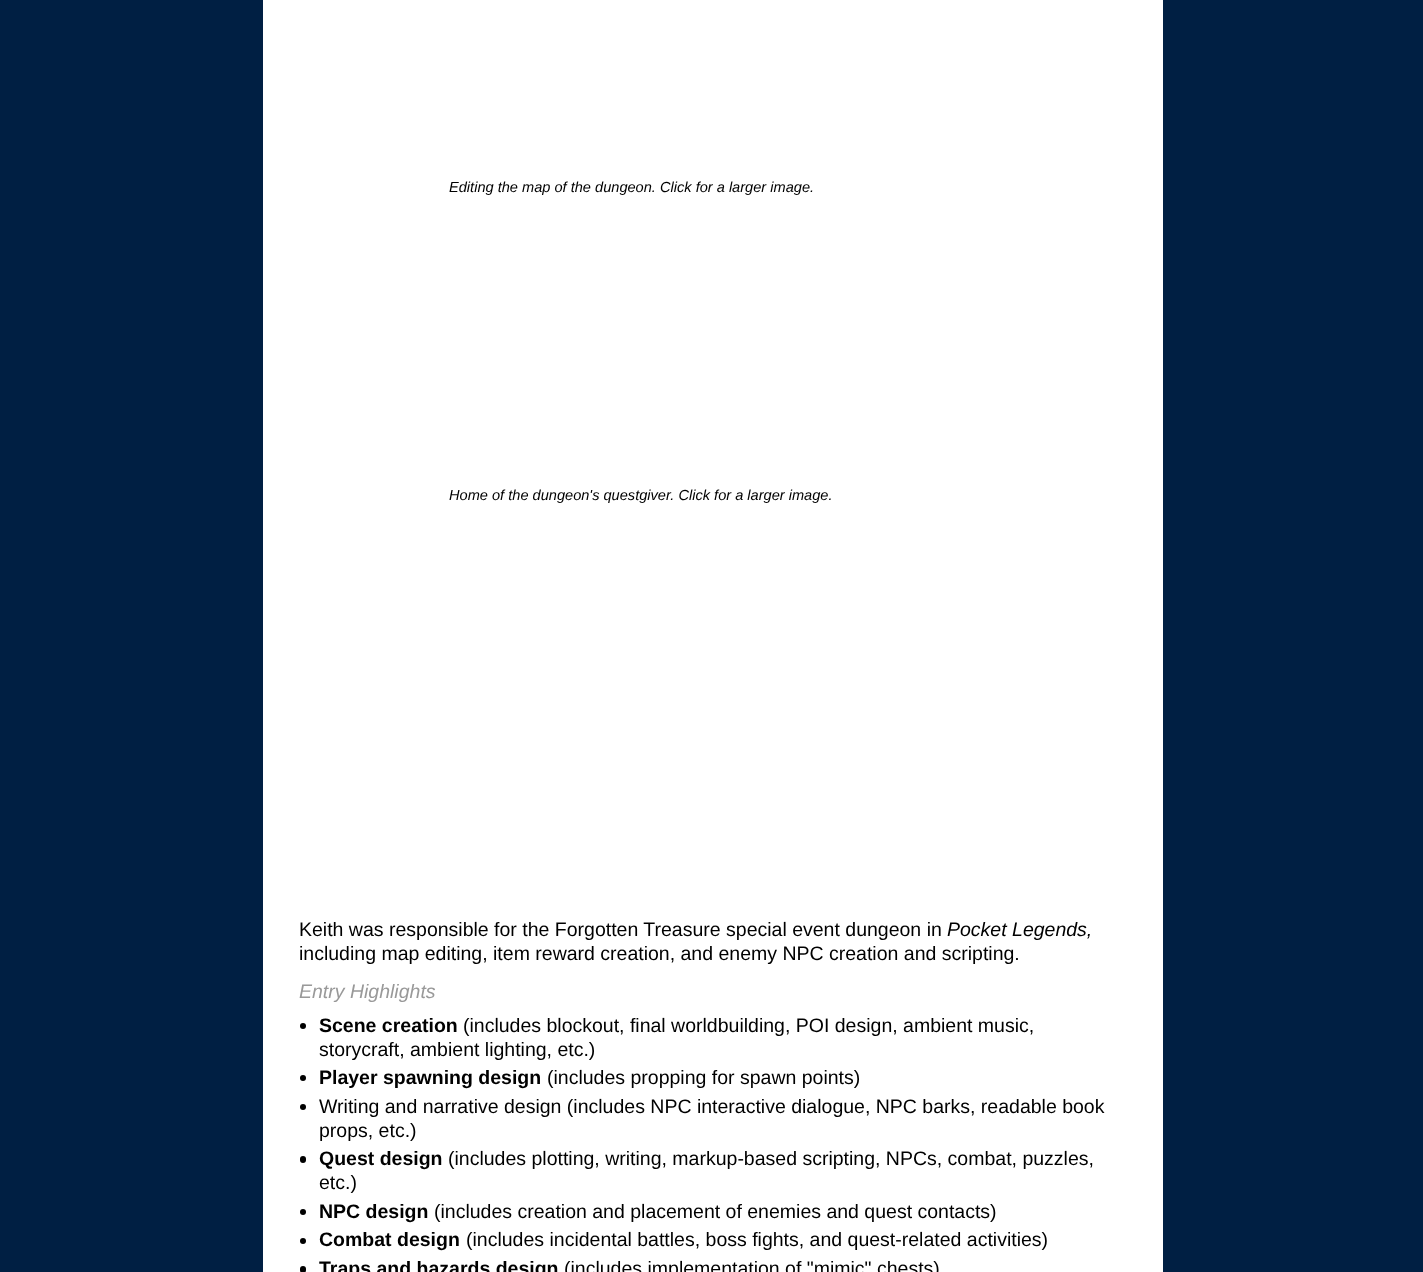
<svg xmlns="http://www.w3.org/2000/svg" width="1423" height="1272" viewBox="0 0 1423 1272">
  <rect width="100%" height="100%" fill="#001f43"/>
  <rect x="263" y="0" width="900" height="1272" fill="#ffffff"/>
  <text x="449" y="192" font-family="Liberation Sans" font-size="14.6" font-style="italic" fill="#000000">Editing the map of the dungeon. Click for a larger image.</text>
  <text x="449" y="500" font-family="Liberation Sans" font-size="14.6" font-style="italic" fill="#000000">Home of the dungeon's questgiver. Click for a larger image.</text>
  <text x="299" y="936" font-family="Liberation Sans" font-size="19.5" fill="#000000">Keith was responsible for the Forgotten Treasure special event dungeon in</text>
  <text x="947" y="936" font-family="Liberation Sans" font-size="19.5" font-style="italic" fill="#000000">Pocket Legends,</text>
  <text x="299" y="960" font-family="Liberation Sans" font-size="19.5" fill="#000000">including map editing, item reward creation, and enemy NPC creation and scripting.</text>
  <text x="299" y="998" font-family="Liberation Sans" font-size="19.5" font-style="italic" fill="#999999">Entry Highlights</text>
  <circle cx="303" cy="1026" r="3" fill="#000000"/>
  <text x="319" y="1032" font-family="Liberation Sans" font-size="19.5" font-weight="bold" fill="#000000">Scene creation</text>
  <text x="463" y="1032" font-family="Liberation Sans" font-size="19.5" fill="#000000">(includes blockout, final worldbuilding, POI design, ambient music,</text>
  <text x="319" y="1056" font-family="Liberation Sans" font-size="19.5" fill="#000000">storycraft, ambient lighting, etc.)</text>
  <circle cx="303" cy="1078" r="3" fill="#000000"/>
  <text x="319" y="1084" font-family="Liberation Sans" font-size="19.5" font-weight="bold" fill="#000000">Player spawning design</text>
  <text x="547" y="1084" font-family="Liberation Sans" font-size="19.5" fill="#000000">(includes propping for spawn points)</text>
  <circle cx="303" cy="1107" r="3" fill="#000000"/>
  <text x="319" y="1113" font-family="Liberation Sans" font-size="19.5" fill="#000000">Writing and narrative design (includes NPC interactive dialogue, NPC barks, readable book</text>
  <text x="319" y="1137" font-family="Liberation Sans" font-size="19.5" fill="#000000">props, etc.)</text>
  <rect x="300" y="1156" width="6" height="7" rx="3" fill="#000000"/>
  <text x="319" y="1165" font-family="Liberation Sans" font-size="19.5" font-weight="bold" fill="#000000">Quest design</text>
  <text x="448" y="1165" font-family="Liberation Sans" font-size="19.5" fill="#000000">(includes plotting, writing, markup-based scripting, NPCs, combat, puzzles,</text>
  <text x="319" y="1189" font-family="Liberation Sans" font-size="19.5" fill="#000000">etc.)</text>
  <circle cx="303" cy="1212" r="3" fill="#000000"/>
  <text x="319" y="1218" font-family="Liberation Sans" font-size="19.5" font-weight="bold" fill="#000000">NPC design</text>
  <text x="434" y="1218" font-family="Liberation Sans" font-size="19.5" fill="#000000">(includes creation and placement of enemies and quest contacts)</text>
  <circle cx="303" cy="1241" r="3" fill="#000000"/>
  <text x="319" y="1246" font-family="Liberation Sans" font-size="19.5" font-weight="bold" fill="#000000">Combat design</text>
  <text x="466" y="1246" font-family="Liberation Sans" font-size="19.5" fill="#000000">(includes incidental battles, boss fights, and quest-related activities)</text>
  <rect x="300" y="1266" width="6" height="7" rx="3" fill="#000000"/>
  <text x="319" y="1275" font-family="Liberation Sans" font-size="19.5" font-weight="bold" fill="#000000">Traps and hazards design</text>
  <text x="564" y="1275" font-family="Liberation Sans" font-size="19.5" fill="#000000">(includes implementation of "mimic" chests)</text>
</svg>
